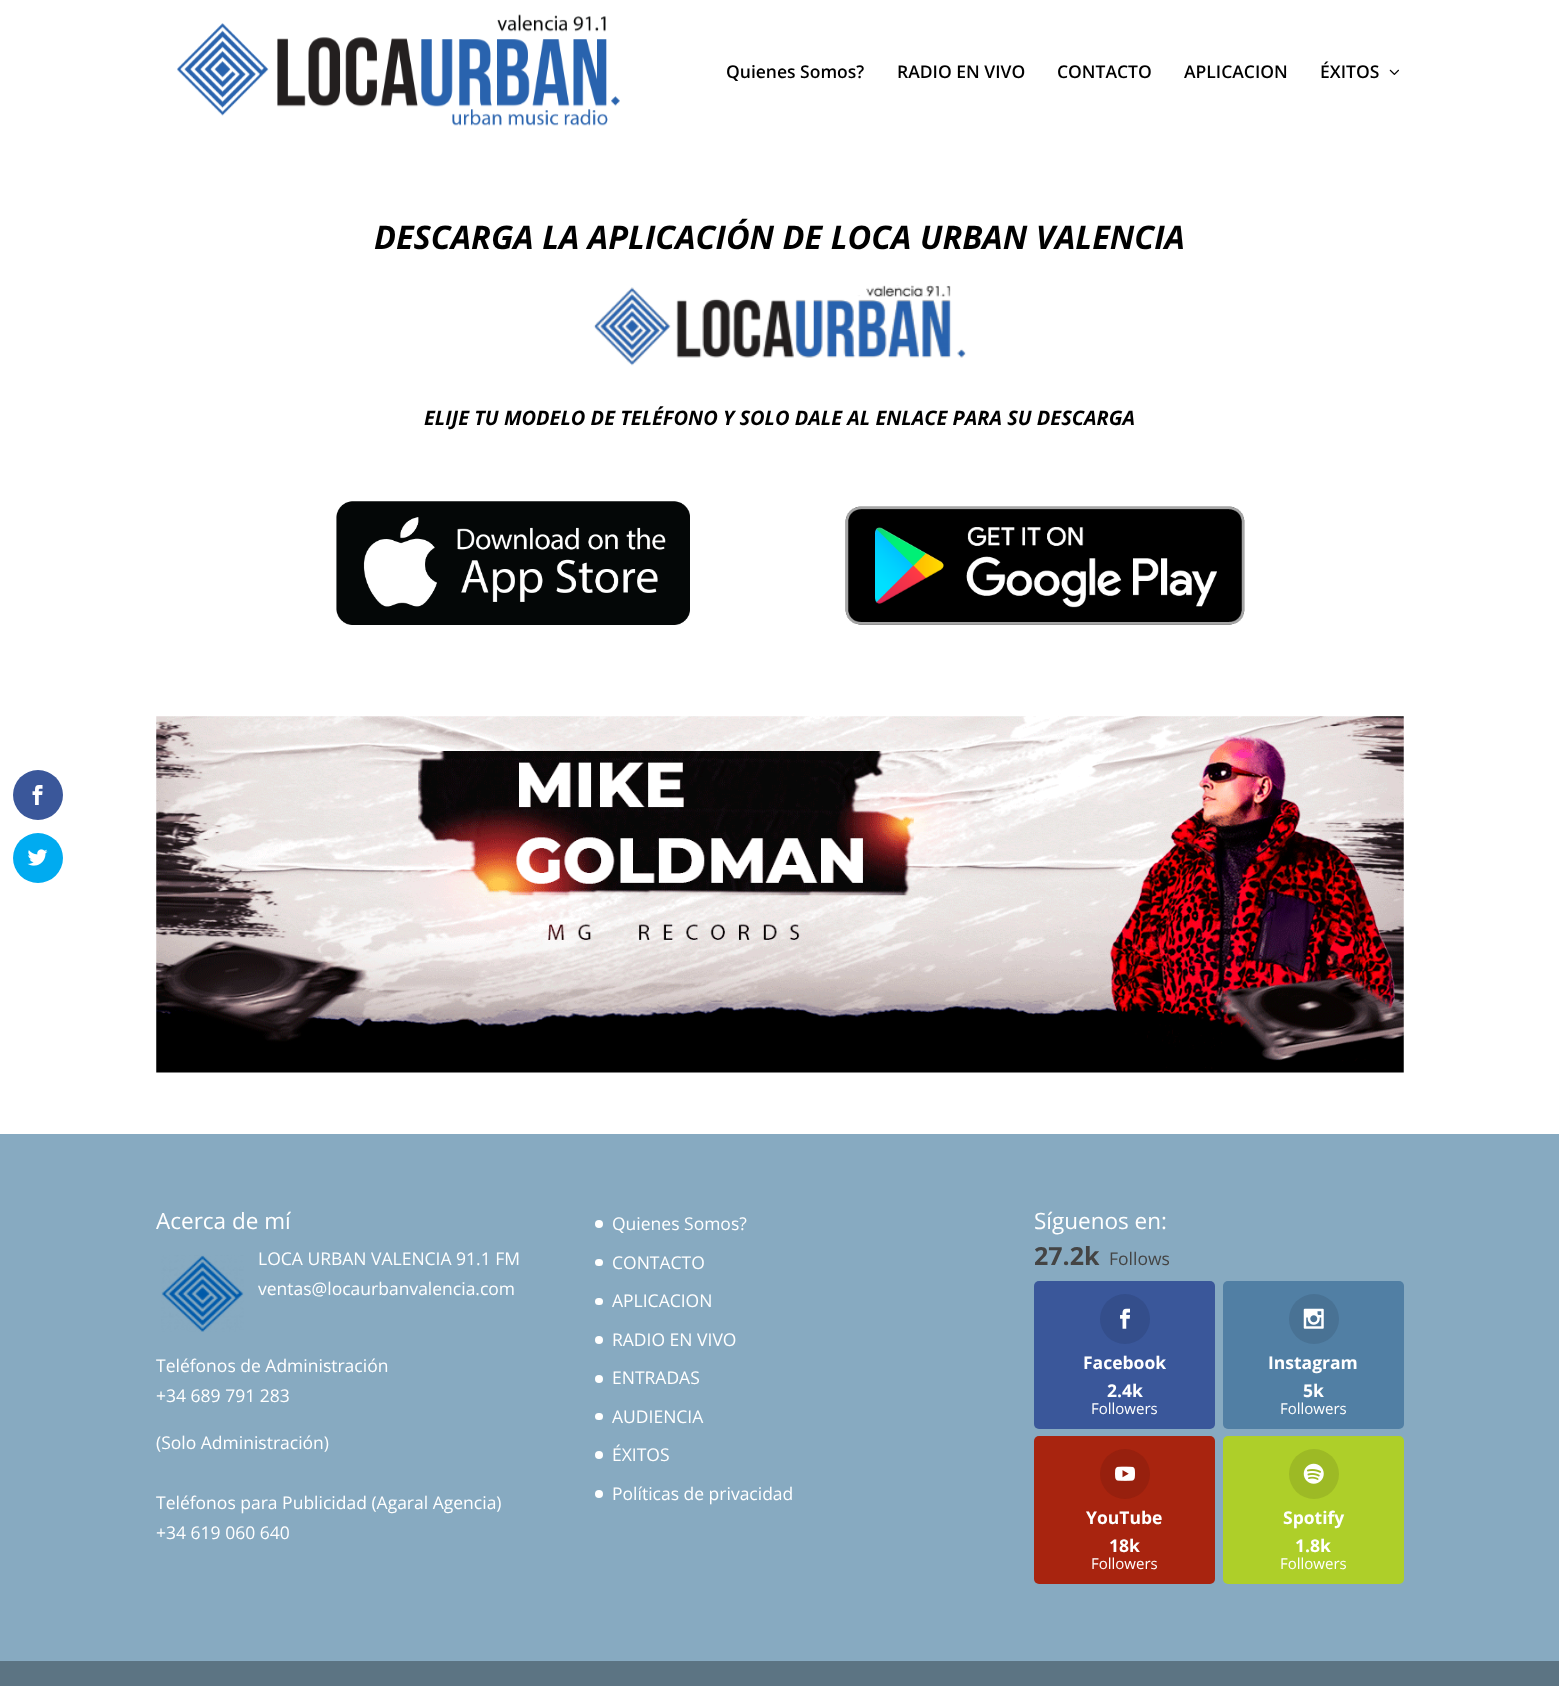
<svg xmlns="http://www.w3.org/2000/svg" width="1559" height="1693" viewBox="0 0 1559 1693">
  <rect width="100%" height="100%" fill="#ffffff"/>
  <circle cx="38" cy="795" r="25" fill="#3a579a"/>
  <image x="32" y="785" width="11" height="20" href="img1.png"/>
  <circle cx="38" cy="858" r="25" fill="#00abf0"/>
  <image x="27" y="849" width="21" height="17" href="img2.png"/>
  <image x="177" y="14" width="443" height="112" href="img3.png"/>
  <text x="726" y="78" font-family="Open Sans" font-size="17.5" font-weight="600" fill="#000000">Quienes Somos?</text>
  <text x="897" y="78" font-family="Open Sans" font-size="17.5" font-weight="600" fill="#000000">RADIO EN VIVO</text>
  <text x="1057" y="78" font-family="Open Sans" font-size="17.5" font-weight="600" fill="#000000">CONTACTO</text>
  <text x="1184" y="78" font-family="Open Sans" font-size="17.5" font-weight="600" fill="#000000">APLICACION</text>
  <text x="1320" y="78" font-family="Open Sans" font-size="17.5" font-weight="600" fill="#000000">ÉXITOS</text>
  <image x="1389" y="69" width="10" height="6" href="img4.png"/>
  <text x="374" y="249" font-family="Open Sans" font-size="32.5" font-weight="bold" font-style="italic" fill="#000000">DESCARGA LA APLICACIÓN DE LOCA URBAN VALENCIA</text>
  <image x="593" y="285" width="373" height="81" href="img5.png"/>
  <text x="424" y="425" font-family="Open Sans" font-size="20" font-weight="bold" font-style="italic" fill="#000000">ELIJE TU MODELO DE TELÉFONO Y SOLO DALE AL ENLACE PARA SU DESCARGA</text>
  <image x="336" y="501" width="354" height="124" href="img6.png"/>
  <image x="845" y="506" width="400" height="119" href="img7.png"/>
  <image x="156" y="716" width="1248" height="357" href="img8.png"/>
  <rect x="0" y="1134" width="1559" height="527" fill="#87aac1"/>
  <text x="156" y="1229" font-family="Open Sans" font-size="22.5" fill="#ffffff">Acerca de mí</text>
  <image x="161" y="1255" width="83" height="77" href="img9.png"/>
  <text x="258" y="1265" font-family="Open Sans" font-size="17.5" fill="#ffffff">LOCA URBAN VALENCIA 91.1 FM</text>
  <text x="258" y="1295" font-family="Open Sans" font-size="17.5" fill="#ffffff">ventas@locaurbanvalencia.com</text>
  <text x="156" y="1372" font-family="Open Sans" font-size="17.5" fill="#ffffff">Teléfonos de Administración</text>
  <text x="156" y="1402" font-family="Open Sans" font-size="17.5" fill="#ffffff">+34 689 791 283</text>
  <text x="156" y="1449" font-family="Open Sans" font-size="17.5" fill="#ffffff">(Solo Administración)</text>
  <text x="156" y="1509" font-family="Open Sans" font-size="17.5" fill="#ffffff">Teléfonos para Publicidad (Agaral Agencia)</text>
  <text x="156" y="1539" font-family="Open Sans" font-size="17.5" fill="#ffffff">+34 619 060 640</text>
  <circle cx="599" cy="1224" r="4" fill="#ffffff"/>
  <text x="612" y="1230" font-family="Open Sans" font-size="17.5" fill="#ffffff">Quienes Somos?</text>
  <rect x="595" y="1259" width="8" height="7" rx="3.5" fill="#ffffff"/>
  <text x="612" y="1269" font-family="Open Sans" font-size="17.5" fill="#ffffff">CONTACTO</text>
  <rect x="595" y="1298" width="8" height="7" rx="3.5" fill="#ffffff"/>
  <text x="612" y="1307" font-family="Open Sans" font-size="17.5" fill="#ffffff">APLICACION</text>
  <circle cx="599" cy="1340" r="4" fill="#ffffff"/>
  <text x="612" y="1346" font-family="Open Sans" font-size="17.5" fill="#ffffff">RADIO EN VIVO</text>
  <circle cx="599" cy="1379" r="4" fill="#ffffff"/>
  <text x="612" y="1384" font-family="Open Sans" font-size="17.5" fill="#ffffff">ENTRADAS</text>
  <rect x="595" y="1413" width="8" height="7" rx="3.5" fill="#ffffff"/>
  <text x="612" y="1423" font-family="Open Sans" font-size="17.5" fill="#ffffff">AUDIENCIA</text>
  <circle cx="599" cy="1455" r="4" fill="#ffffff"/>
  <text x="612" y="1461" font-family="Open Sans" font-size="17.5" fill="#ffffff">ÉXITOS</text>
  <circle cx="599" cy="1494" r="4" fill="#ffffff"/>
  <text x="612" y="1500" font-family="Open Sans" font-size="17.5" fill="#ffffff">Políticas de privacidad</text>
  <text x="1034" y="1229" font-family="Open Sans" font-size="22.5" fill="#ffffff">Síguenos en:</text>
  <text x="1034" y="1265" font-family="Open Sans" font-size="25" font-weight="bold" fill="#444444">27.2k</text>
  <text x="1109" y="1265" font-family="Open Sans" font-size="17.5" fill="#444444">Follows</text>
  <rect x="1034" y="1281" width="181" height="148" rx="5" fill="#3a579a"/>
  <circle cx="1125" cy="1319" r="25" fill="#344e8b"/>
  <image x="1120" y="1308" width="10" height="21" href="img10.png"/>
  <text x="1083" y="1369" font-family="Open Sans" font-size="17.5" font-weight="bold" fill="#ffffff">Facebook</text>
  <text x="1107" y="1397" font-family="Open Sans" font-size="17.5" font-weight="bold" fill="#ffffff">2.4k</text>
  <text x="1091" y="1414" font-family="Open Sans" font-size="15" fill="#ffffff">Followers</text>
  <rect x="1223" y="1281" width="181" height="148" rx="5" fill="#517fa4"/>
  <circle cx="1314" cy="1319" r="25" fill="#497294"/>
  <image x="1303" y="1308" width="21" height="21" href="img11.png"/>
  <text x="1268" y="1369" font-family="Open Sans" font-size="17.5" font-weight="bold" fill="#ffffff">Instagram</text>
  <text x="1303" y="1397" font-family="Open Sans" font-size="17.5" font-weight="bold" fill="#ffffff">5k</text>
  <text x="1280" y="1414" font-family="Open Sans" font-size="15" fill="#ffffff">Followers</text>
  <rect x="1034" y="1436" width="181" height="148" rx="5" fill="#a8240f"/>
  <circle cx="1125" cy="1474" r="25" fill="#97200e"/>
  <image x="1115" y="1466" width="20" height="15" href="img12.png"/>
  <text x="1086" y="1524" font-family="Open Sans" font-size="17.5" font-weight="bold" fill="#ffffff">YouTube</text>
  <text x="1109" y="1552" font-family="Open Sans" font-size="17.5" font-weight="bold" fill="#ffffff">18k</text>
  <text x="1091" y="1569" font-family="Open Sans" font-size="15" fill="#ffffff">Followers</text>
  <rect x="1223" y="1436" width="181" height="148" rx="5" fill="#aecf29"/>
  <circle cx="1314" cy="1474" r="25" fill="#9dba25"/>
  <image x="1303" y="1463" width="21" height="21" href="img13.png"/>
  <text x="1283" y="1524" font-family="Open Sans" font-size="17.5" font-weight="bold" fill="#ffffff">Spotify</text>
  <text x="1295" y="1552" font-family="Open Sans" font-size="17.5" font-weight="bold" fill="#ffffff">1.8k</text>
  <text x="1280" y="1569" font-family="Open Sans" font-size="15" fill="#ffffff">Followers</text>
  <rect x="0" y="1661" width="1559" height="25" fill="#5c7483"/>
</svg>
